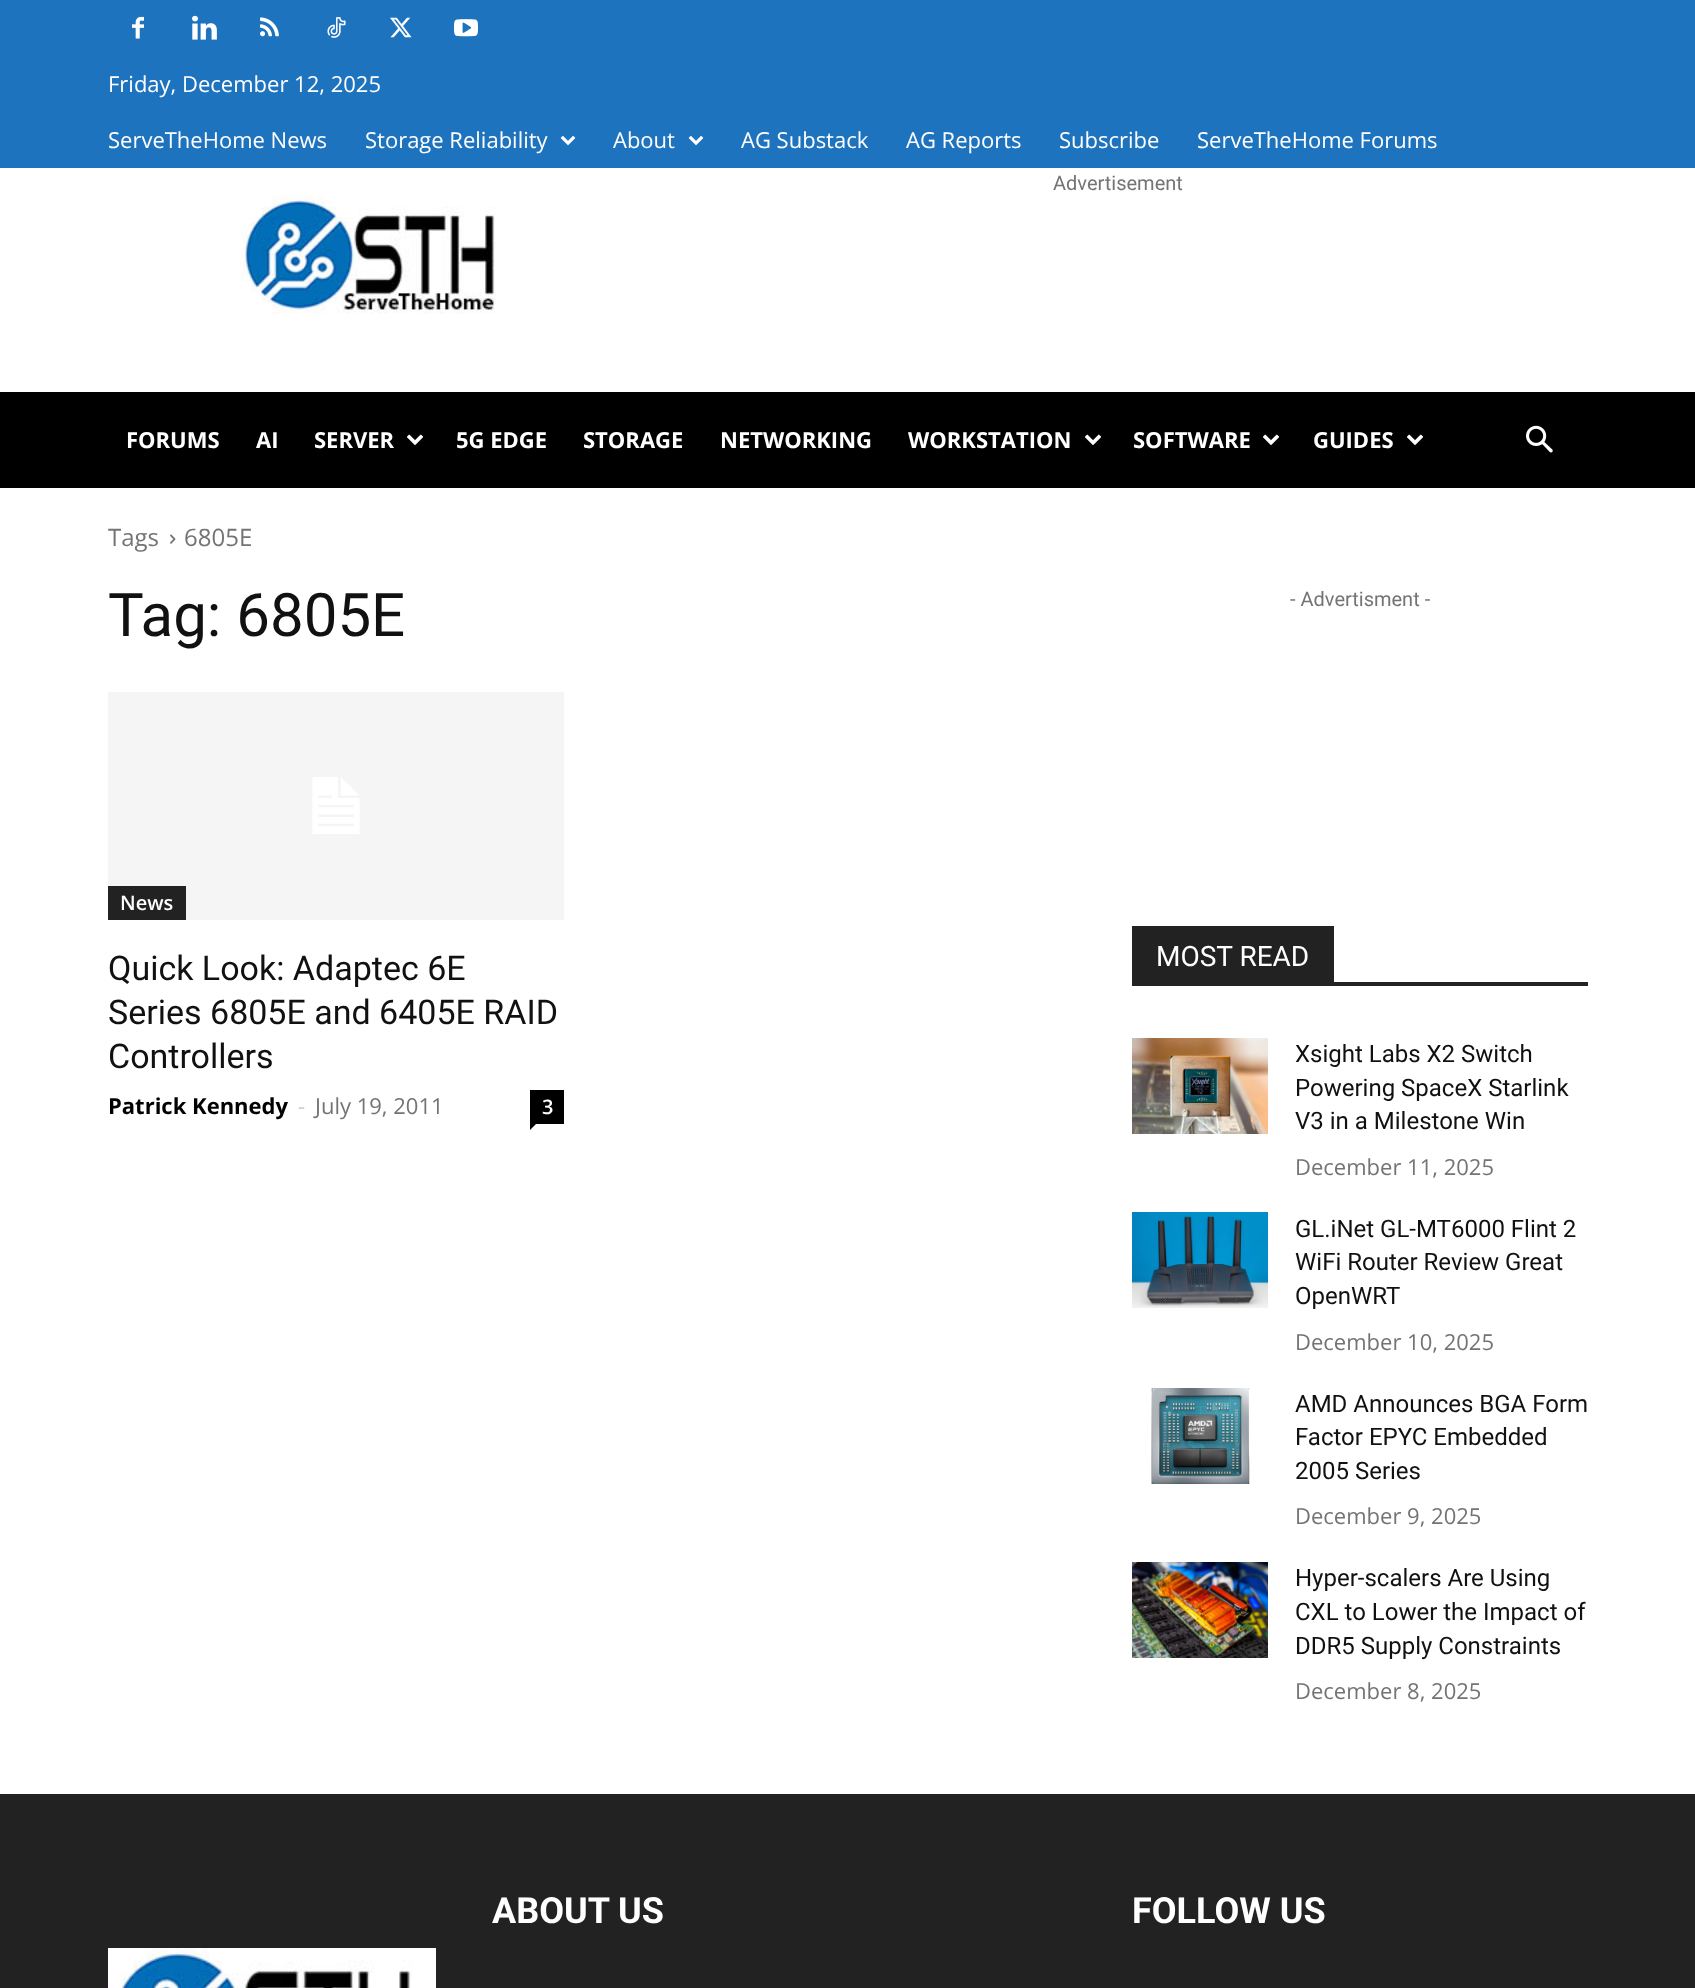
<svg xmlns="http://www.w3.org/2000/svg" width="1695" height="1988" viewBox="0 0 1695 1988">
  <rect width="100%" height="100%" fill="#ffffff"/>
  <rect x="0" y="0" width="1695" height="168" fill="#1e73be"/>
  <image x="132" y="16" width="12" height="23" href="img1.png"/>
  <image x="192" y="15" width="25" height="25" href="img2.png"/>
  <image x="260" y="17" width="19" height="20" href="img3.png"/>
  <image x="327" y="17" width="19" height="21" href="img4.png"/>
  <image x="390" y="17" width="22" height="21" href="img5.png"/>
  <image x="454" y="19" width="24" height="18" href="img6.png"/>
  <text x="108" y="92" font-family="Open Sans" font-size="22" fill="#ffffff">Friday, December 12, 2025</text>
  <text x="108" y="148" font-family="Open Sans" font-size="22" fill="#ffffff">ServeTheHome News</text>
  <text x="365" y="148" font-family="Open Sans" font-size="22" fill="#ffffff">Storage Reliability</text>
  <image x="560" y="135" width="16" height="11" href="img7.png"/>
  <text x="613" y="148" font-family="Open Sans" font-size="22" fill="#ffffff">About</text>
  <image x="688" y="135" width="16" height="11" href="img7.png"/>
  <text x="741" y="148" font-family="Open Sans" font-size="22" fill="#ffffff">AG Substack</text>
  <text x="906" y="148" font-family="Open Sans" font-size="22" fill="#ffffff">AG Reports</text>
  <text x="1059" y="148" font-family="Open Sans" font-size="22" fill="#ffffff">Subscribe</text>
  <text x="1197" y="148" font-family="Open Sans" font-size="22" fill="#ffffff">ServeTheHome Forums</text>
  <text x="1053" y="190" font-family="Roboto" font-size="20" fill="#747474">Advertisement</text>
  <image x="240" y="196" width="256" height="118" href="img8.png"/>
  <rect x="0" y="392" width="1695" height="96" fill="#000000"/>
  <text x="126" y="448" font-family="Open Sans" font-size="22" font-weight="bold" fill="#ffffff">FORUMS</text>
  <text x="256" y="448" font-family="Open Sans" font-size="22" font-weight="bold" fill="#ffffff">AI</text>
  <text x="314" y="448" font-family="Open Sans" font-size="22" font-weight="bold" fill="#ffffff">SERVER</text>
  <image x="407" y="434" width="16" height="11" href="img9.png"/>
  <text x="456" y="448" font-family="Open Sans" font-size="22" font-weight="bold" fill="#ffffff">5G EDGE</text>
  <text x="583" y="448" font-family="Open Sans" font-size="22" font-weight="bold" fill="#ffffff">STORAGE</text>
  <text x="720" y="448" font-family="Open Sans" font-size="22" font-weight="bold" fill="#ffffff">NETWORKING</text>
  <text x="908" y="448" font-family="Open Sans" font-size="22" font-weight="bold" fill="#ffffff">WORKSTATION</text>
  <image x="1085" y="434" width="16" height="11" href="img9.png"/>
  <text x="1133" y="448" font-family="Open Sans" font-size="22" font-weight="bold" fill="#ffffff">SOFTWARE</text>
  <image x="1263" y="434" width="16" height="11" href="img9.png"/>
  <text x="1313" y="448" font-family="Open Sans" font-size="22" font-weight="bold" fill="#ffffff">GUIDES</text>
  <image x="1407" y="434" width="16" height="11" href="img9.png"/>
  <image x="1526" y="425" width="27" height="28" href="img10.png"/>
  <text x="108" y="546" font-family="Open Sans" font-size="24" fill="#747474">Tags</text>
  <image x="170" y="534" width="6" height="10" href="img11.png"/>
  <text x="184" y="546" font-family="Open Sans" font-size="24" fill="#747474">6805E</text>
  <text x="108" y="636" font-family="Roboto" font-size="60" fill="#111111">Tag: 6805E</text>
  <image x="108" y="692" width="456" height="228" href="img12.png"/>
  <rect x="108" y="886" width="78" height="34" fill="#222222"/>
  <text x="120" y="910" font-family="Open Sans" font-size="20" font-weight="600" fill="#ffffff">News</text>
  <text x="108" y="980" font-family="Roboto" font-size="34" fill="#111111">Quick Look: Adaptec 6E</text>
  <text x="108" y="1024" font-family="Roboto" font-size="34" fill="#111111">Series 6805E and 6405E RAID</text>
  <text x="108" y="1068" font-family="Roboto" font-size="34" fill="#111111">Controllers</text>
  <text x="108" y="1114" font-family="Open Sans" font-size="22" font-weight="bold" fill="#000000">Patrick Kennedy</text>
  <text x="298" y="1114" font-family="Open Sans" font-size="22" fill="#cccccc">-</text>
  <text x="315" y="1114" font-family="Open Sans" font-size="22" fill="#747474">July 19, 2011</text>
  <rect x="530" y="1090" width="34" height="34" fill="#000000"/>
  <text x="542" y="1114" font-family="Open Sans" font-size="20" font-weight="600" fill="#ffffff">3</text>
  <path d="M530 1124H536L530 1130Z" fill="#000000"/>
  <text x="1290" y="606" font-family="Roboto" font-size="20" fill="#747474">- Advertisment -</text>
  <rect x="1132" y="982" width="456" height="4" fill="#222222"/>
  <rect x="1132" y="926" width="202" height="56" fill="#222222"/>
  <text x="1156" y="966" font-family="Roboto" font-size="28" fill="#ffffff">MOST READ</text>
  <image x="1132" y="1038" width="136" height="96" href="img13.png"/>
  <text x="1295" y="1062" font-family="Roboto" font-size="24" fill="#111111">Xsight Labs X2 Switch</text>
  <text x="1295" y="1096" font-family="Roboto" font-size="24" fill="#111111">Powering SpaceX Starlink</text>
  <text x="1295" y="1129" font-family="Roboto" font-size="24" fill="#111111">V3 in a Milestone Win</text>
  <text x="1295" y="1175" font-family="Open Sans" font-size="22" fill="#747474">December 11, 2025</text>
  <image x="1132" y="1212" width="136" height="96" href="img14.png"/>
  <text x="1295" y="1237" font-family="Roboto" font-size="24" fill="#111111">GL.iNet GL-MT6000 Flint 2</text>
  <text x="1295" y="1270" font-family="Roboto" font-size="24" fill="#111111">WiFi Router Review Great</text>
  <text x="1295" y="1304" font-family="Roboto" font-size="24" fill="#111111">OpenWRT</text>
  <text x="1295" y="1350" font-family="Open Sans" font-size="22" fill="#747474">December 10, 2025</text>
  <image x="1151" y="1388" width="99" height="96" href="img15.png"/>
  <text x="1295" y="1412" font-family="Roboto" font-size="24" fill="#111111">AMD Announces BGA Form</text>
  <text x="1295" y="1445" font-family="Roboto" font-size="24" fill="#111111">Factor EPYC Embedded</text>
  <text x="1295" y="1479" font-family="Roboto" font-size="24" fill="#111111">2005 Series</text>
  <text x="1295" y="1524" font-family="Open Sans" font-size="22" fill="#747474">December 9, 2025</text>
  <image x="1132" y="1562" width="136" height="96" href="img16.png"/>
  <text x="1295" y="1586" font-family="Roboto" font-size="24" fill="#111111">Hyper-scalers Are Using</text>
  <text x="1295" y="1620" font-family="Roboto" font-size="24" fill="#111111">CXL to Lower the Impact of</text>
  <text x="1295" y="1654" font-family="Roboto" font-size="24" fill="#111111">DDR5 Supply Constraints</text>
  <text x="1295" y="1699" font-family="Open Sans" font-size="22" fill="#747474">December 8, 2025</text>
  <rect x="0" y="1794" width="1695" height="194" fill="#222222"/>
  <text x="492" y="1923" font-family="Roboto" font-size="36" font-weight="bold" fill="#ffffff">ABOUT US</text>
  <text x="1132" y="1923" font-family="Roboto" font-size="36" font-weight="bold" fill="#ffffff">FOLLOW US</text>
  <image x="108" y="1948" width="328" height="40" href="img17.png"/>
</svg>
